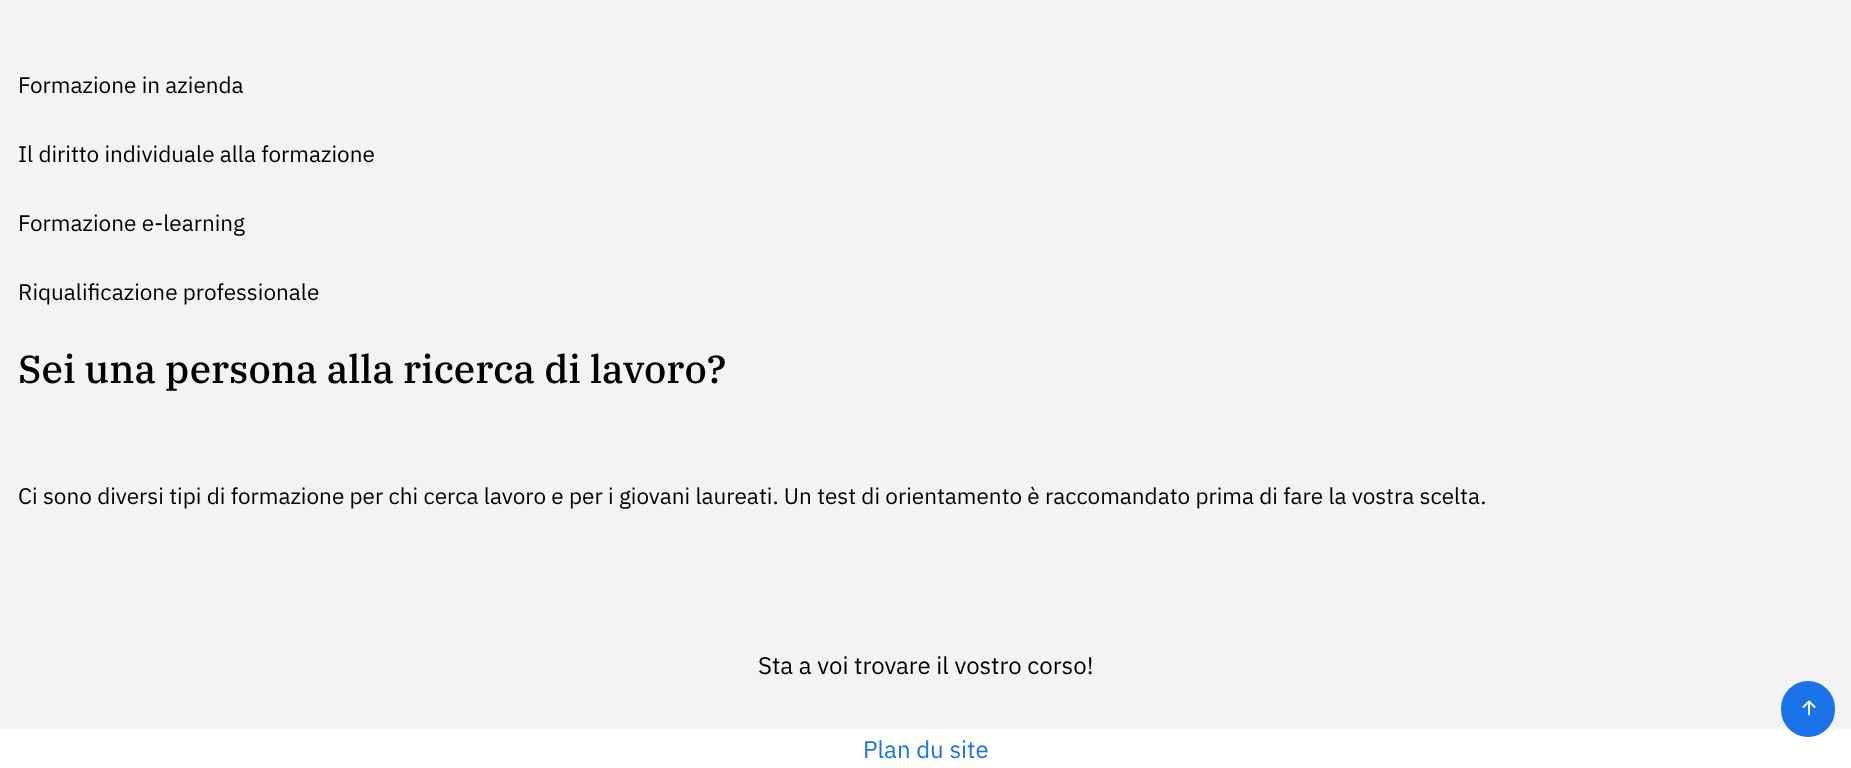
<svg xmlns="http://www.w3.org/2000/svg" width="1851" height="768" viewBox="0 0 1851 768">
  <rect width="100%" height="100%" fill="#ffffff"/>
  <rect x="0" y="0" width="1851" height="729" fill="#f3f3f3"/>
  <text x="18" y="93" font-family="IBM Plex Sans" font-size="22.5" fill="#000000">Formazione in azienda</text>
  <text x="18" y="162" font-family="IBM Plex Sans" font-size="22.5" fill="#000000">Il diritto individuale alla formazione</text>
  <text x="18" y="231" font-family="IBM Plex Sans" font-size="22.5" fill="#000000">Formazione e-learning</text>
  <text x="18" y="300" font-family="IBM Plex Sans" font-size="22.5" fill="#000000">Riqualificazione professionale</text>
  <text x="18" y="383" font-family="IBM Plex Serif" font-size="39" font-weight="500" fill="#000000">Sei una persona alla ricerca di lavoro?</text>
  <text x="18" y="504" font-family="IBM Plex Sans" font-size="22.5" fill="#000000">Ci sono diversi tipi di formazione per chi cerca lavoro e per i giovani laureati. Un test di orientamento è raccomandato prima di fare la vostra scelta.</text>
  <text x="758" y="674" font-family="IBM Plex Sans" font-size="24" fill="#000000">Sta a voi trovare il vostro corso!</text>
  <rect x="1781" y="681" width="54" height="56" rx="27" fill="#1a73e9"/>
  <image x="1802" y="700" width="14" height="16" href="img1.png"/>
  <text x="863" y="758" font-family="IBM Plex Sans" font-size="24" fill="#1a73e9">Plan du site</text>
</svg>
